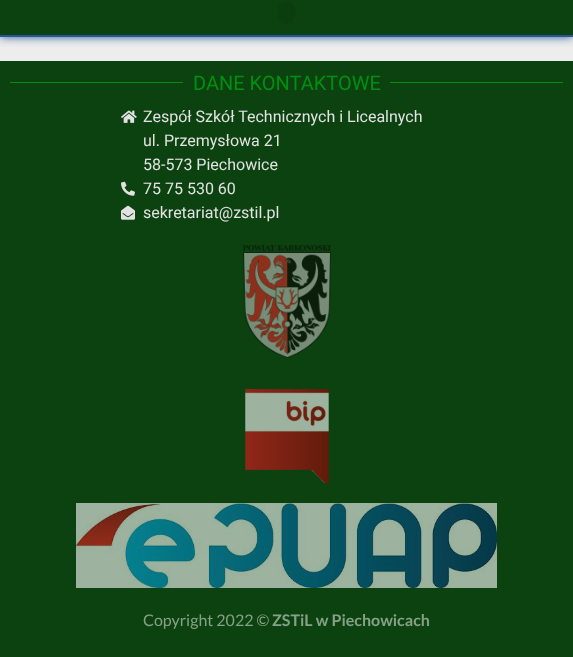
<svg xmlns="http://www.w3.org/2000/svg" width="573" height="657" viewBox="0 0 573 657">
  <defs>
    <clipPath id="clip1"><rect x="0" y="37" width="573" height="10"/></clipPath>
    <filter id="blur1" x="-50%" y="-200%" width="200%" height="500%"><feGaussianBlur stdDeviation="5"/></filter>
  </defs>
  <rect width="100%" height="100%" fill="#ededed"/>
  <rect x="0" y="0" width="573" height="35" fill="#0c4210"/>
  <image x="44" y="0" width="9" height="6" href="img1.png"/>
  <image x="520" y="0" width="9" height="6" href="img2.png"/>
  <g clip-path="url(#clip1)">
    <rect x="0" y="0" width="573" height="37" fill="#285694" filter="url(#blur1)"/>
  </g>
  <rect x="0" y="35" width="573" height="2" fill="#285694"/>
  <ellipse cx="286.5" cy="12.5" rx="9.5" ry="11.5" fill="#000000" fill-opacity="0.05"/>
  <rect x="0" y="61" width="573" height="596" fill="#0c4210"/>
  <rect x="10" y="82" width="173" height="1" fill="#008f11"/>
  <text x="193" y="90" font-family="Roboto" font-size="20" fill="#008f11">DANE KONTAKTOWE</text>
  <rect x="390" y="82" width="173" height="1" fill="#008f11"/>
  <image x="121" y="110" width="16" height="13" href="img3.png"/>
  <text x="143" y="122" font-family="Roboto" font-size="16" fill="#e1e2e1">Zespół Szkół Technicznych i Licealnych</text>
  <text x="143" y="146" font-family="Roboto" font-size="16" fill="#e1e2e1">ul. Przemysłowa 21</text>
  <text x="143" y="170" font-family="Roboto" font-size="16" fill="#e1e2e1">58-573 Piechowice</text>
  <image x="121" y="181" width="14" height="15" href="img4.png"/>
  <text x="143" y="194" font-family="Roboto" font-size="16" fill="#e1e2e1">75 75 530 60</text>
  <image x="121" y="205" width="14" height="15" href="img5.png"/>
  <text x="143" y="218" font-family="Roboto" font-size="16" fill="#e1e2e1">sekretariat@zstil.pl</text>
  <image x="243" y="245" width="88" height="113" href="img6.png"/>
  <image x="245" y="388" width="84" height="95" href="img7.png"/>
  <image x="76" y="503" width="421" height="85" href="img8.png"/>
  <text x="143" y="626" font-family="Lato" font-size="16" fill="#86a188">Copyright 2022 ©</text>
  <text x="272" y="626" font-family="Lato" font-size="16" font-weight="bold" fill="#86a188">ZSTiL w Piechowicach</text>
</svg>
